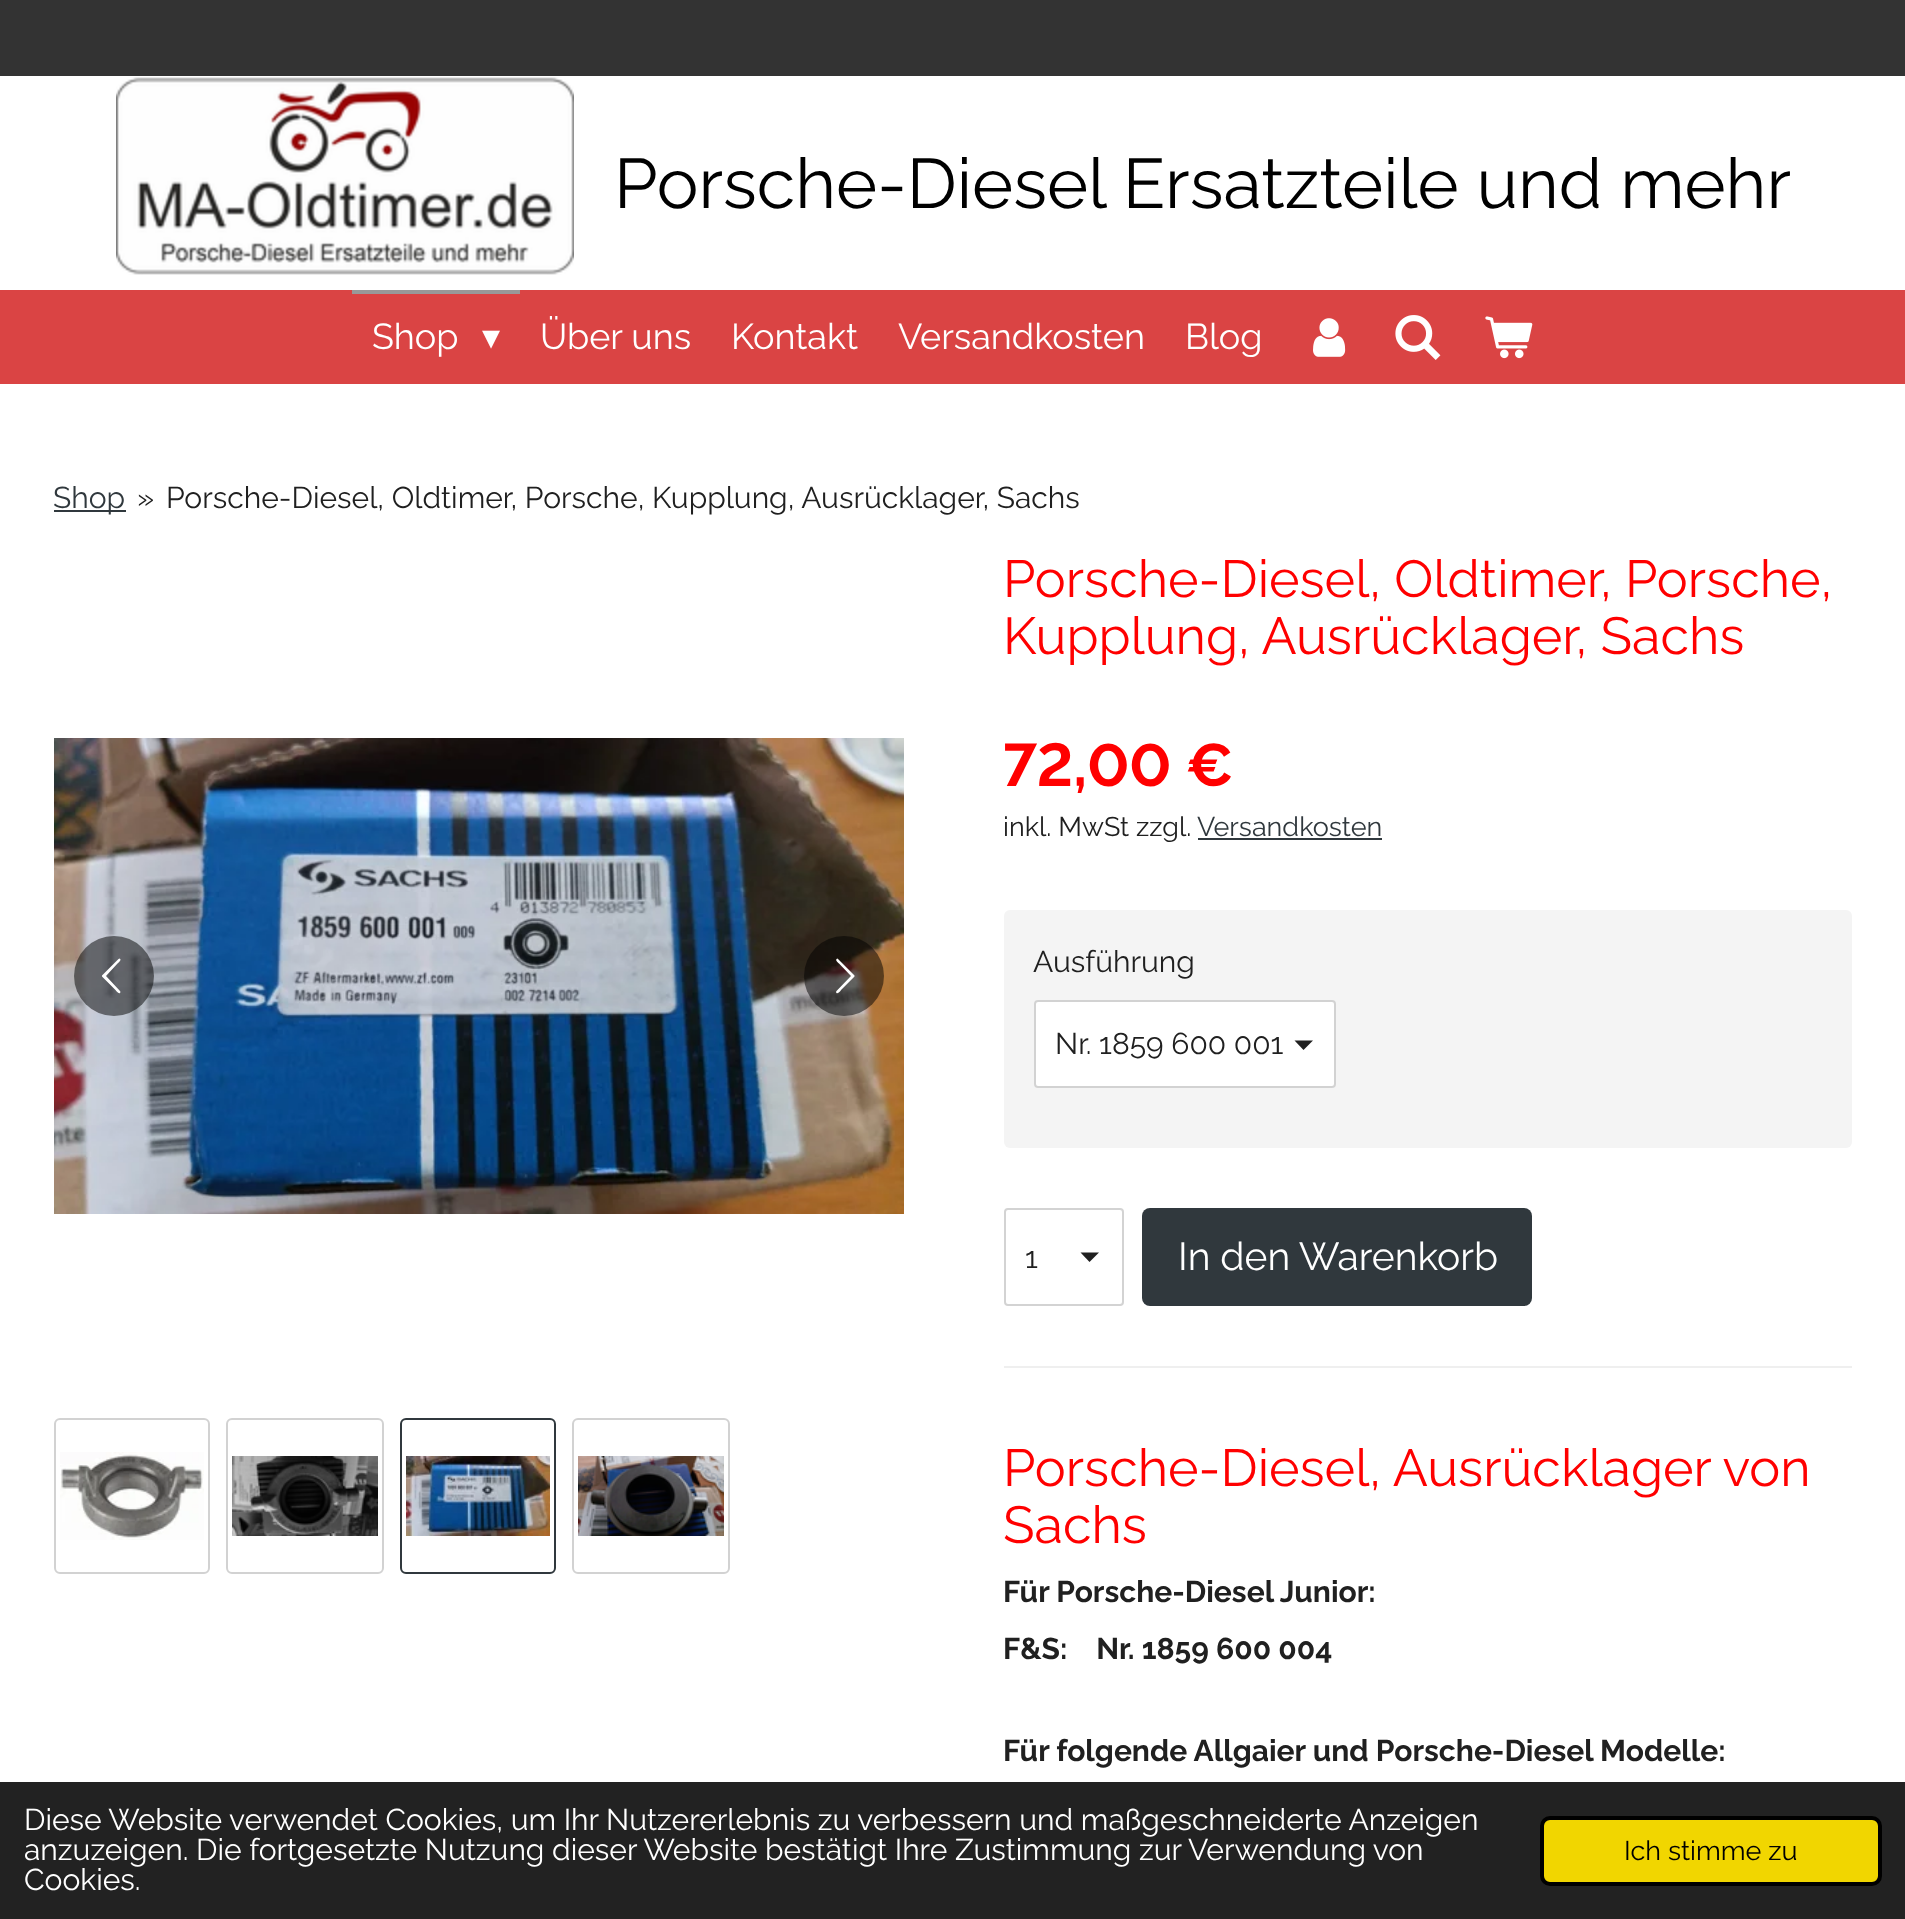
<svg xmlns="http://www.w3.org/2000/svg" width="1905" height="1919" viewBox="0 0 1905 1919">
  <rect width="100%" height="100%" fill="#ffffff"/>
  <rect x="0" y="0" width="1905" height="76" fill="#333333"/>
  <image x="116" y="77" width="458" height="198" href="img1.png"/>
  <text x="614" y="208" font-family="Raleway" font-size="70" fill="#000000">Porsche-Diesel Ersatzteile und mehr</text>
  <rect x="0" y="290" width="1905" height="94" fill="#da4444"/>
  <rect x="352" y="290" width="168" height="4" fill="#999999"/>
  <text x="372" y="349" font-family="Raleway" font-size="36" fill="#ffffff">Shop</text>
  <text x="482" y="349" font-family="DejaVu Sans" font-size="36" fill="#ffffff">▾</text>
  <text x="540" y="349" font-family="Raleway" font-size="36" fill="#ffffff">Über uns</text>
  <text x="731" y="349" font-family="Raleway" font-size="36" fill="#ffffff">Kontakt</text>
  <text x="898" y="349" font-family="Raleway" font-size="36" fill="#ffffff">Versandkosten</text>
  <text x="1185" y="349" font-family="Raleway" font-size="36" fill="#ffffff">Blog</text>
  <image x="1313" y="318" width="33" height="39" href="img2.png"/>
  <image x="1395" y="315" width="46" height="45" href="img3.png"/>
  <image x="1485" y="316" width="48" height="43" href="img4.png"/>
  <rect x="54" y="510" width="72" height="2" fill="#30383d"/>
  <text x="53" y="508" font-family="Raleway" font-size="30" fill="#30383d">Shop</text>
  <text x="137" y="508" font-family="Raleway" font-size="30" fill="#202020">»</text>
  <text x="166" y="508" font-family="Raleway" font-size="30" fill="#202020">Porsche-Diesel, Oldtimer, Porsche, Kupplung, Ausrücklager, Sachs</text>
  <text x="1003" y="597" font-family="Raleway" font-size="52" fill="#ff0000">Porsche-Diesel, Oldtimer, Porsche,</text>
  <text x="1003" y="654" font-family="Raleway" font-size="52" fill="#ff0000">Kupplung, Ausrücklager, Sachs</text>
  <image x="54" y="738" width="850" height="476" href="img5.png"/>
  <circle cx="114" cy="976" r="40" fill="#000000" fill-opacity="0.5"/>
  <path d="M120 991L120.5 992C119.5 995.5 116 990.5 115.5 990L102 976.5V975.5L118.5 959L119.5 958.5C122.5 959.5 118 963 117.5 963.5L106 976Z" fill="#ffffff"/>
  <circle cx="844" cy="976" r="40" fill="#000000" fill-opacity="0.5"/>
  <path d="M836.5 991L851 976L839 963.5C838.5 963 834 959.5 837.5 958.5L838 959L854.5 975.5V976.5L841 990C841 990.5 837 995.5 836 992Z" fill="#ffffff"/>
  <rect x="55" y="1419" width="154" height="154" rx="5" fill="none" stroke="#d2d2d2" stroke-width="2"/>
  <image x="60" y="1452" width="144" height="88" href="img6.png"/>
  <rect x="227" y="1419" width="156" height="154" rx="5" fill="none" stroke="#d2d2d2" stroke-width="2"/>
  <image x="232" y="1456" width="146" height="80" href="img7.png"/>
  <rect x="401" y="1419" width="154" height="154" rx="5" fill="none" stroke="#30383d" stroke-width="2"/>
  <image x="406" y="1456" width="144" height="80" href="img8.png"/>
  <rect x="573" y="1419" width="156" height="154" rx="5" fill="none" stroke="#d2d2d2" stroke-width="2"/>
  <image x="578" y="1456" width="146" height="80" href="img9.png"/>
  <text x="1003" y="786" font-family="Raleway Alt" font-size="60" font-weight="bold" fill="#ff0000">72,00 €</text>
  <text x="1003" y="836" font-family="Raleway" font-size="27" fill="#202020">inkl. MwSt zzgl.</text>
  <text x="1197" y="836" font-family="Raleway" font-size="27" fill="#30383d">Versandkosten</text>
  <rect x="1198" y="838" width="184" height="2" fill="#30383d"/>
  <rect x="1004" y="910" width="848" height="238" rx="6" fill="#f4f4f4"/>
  <text x="1033" y="972" font-family="Raleway" font-size="30" fill="#202020">Ausführung</text>
  <rect x="1034" y="1000" width="302" height="88" rx="4" fill="#ffffff"/>
  <path d="M1303.5 1050L1294.5 1040.5H1313Z" fill="#202020"/>
  <rect x="1035" y="1001" width="300" height="86" rx="3" fill="none" stroke="#a6a6a6" stroke-opacity="0.5" stroke-width="2"/>
  <text x="1055" y="1054" font-family="Raleway" font-size="30" fill="#202020">Nr. 1859 600 001</text>
  <path d="M1089.5 1262L1080.5 1252.5H1099Z" fill="#202020"/>
  <rect x="1005" y="1209" width="118" height="96" rx="3" fill="none" stroke="#d3d3d3" stroke-width="2"/>
  <text x="1025" y="1268" font-family="Raleway" font-size="30" fill="#202020">1</text>
  <rect x="1142" y="1208" width="390" height="98" rx="8" fill="#30383d"/>
  <text x="1178" y="1270" font-family="Raleway" font-size="39" fill="#ffffff">In den Warenkorb</text>
  <rect x="1004" y="1366" width="848" height="2" fill="#efefef"/>
  <text x="1003" y="1486" font-family="Raleway" font-size="52" fill="#ff0000">Porsche-Diesel, Ausrücklager von</text>
  <text x="1003" y="1543" font-family="Raleway" font-size="52" fill="#ff0000">Sachs</text>
  <text x="1003" y="1602" font-family="Raleway" font-size="30" font-weight="bold" fill="#202020">Für Porsche-Diesel Junior:</text>
  <text x="1003" y="1659" font-family="Raleway" font-size="30" font-weight="bold" fill="#202020" xml:space="preserve">F&amp;S:    Nr. 1859 600 004</text>
  <text x="1003" y="1761" font-family="Raleway" font-size="30" font-weight="bold" fill="#202020">Für folgende Allgaier und Porsche-Diesel Modelle:</text>
  <rect x="0" y="1782" width="1905" height="137" fill="#222222"/>
  <text x="24" y="1830" font-family="Raleway" font-size="30" fill="#ffffff">Diese Website verwendet Cookies, um Ihr Nutzererlebnis zu verbessern und maßgeschneiderte Anzeigen</text>
  <text x="24" y="1860" font-family="Raleway" font-size="30" fill="#ffffff">anzuzeigen. Die fortgesetzte Nutzung dieser Website bestätigt Ihre Zustimmung zur Verwendung von</text>
  <text x="24" y="1890" font-family="Raleway" font-size="30" fill="#ffffff">Cookies.</text>
  <rect x="1542" y="1818" width="338" height="66" rx="8" fill="#f1d600" stroke="#000000" stroke-width="4"/>
  <text x="1624" y="1860" font-family="Raleway" font-size="27" fill="#000000">Ich stimme zu</text>
</svg>
